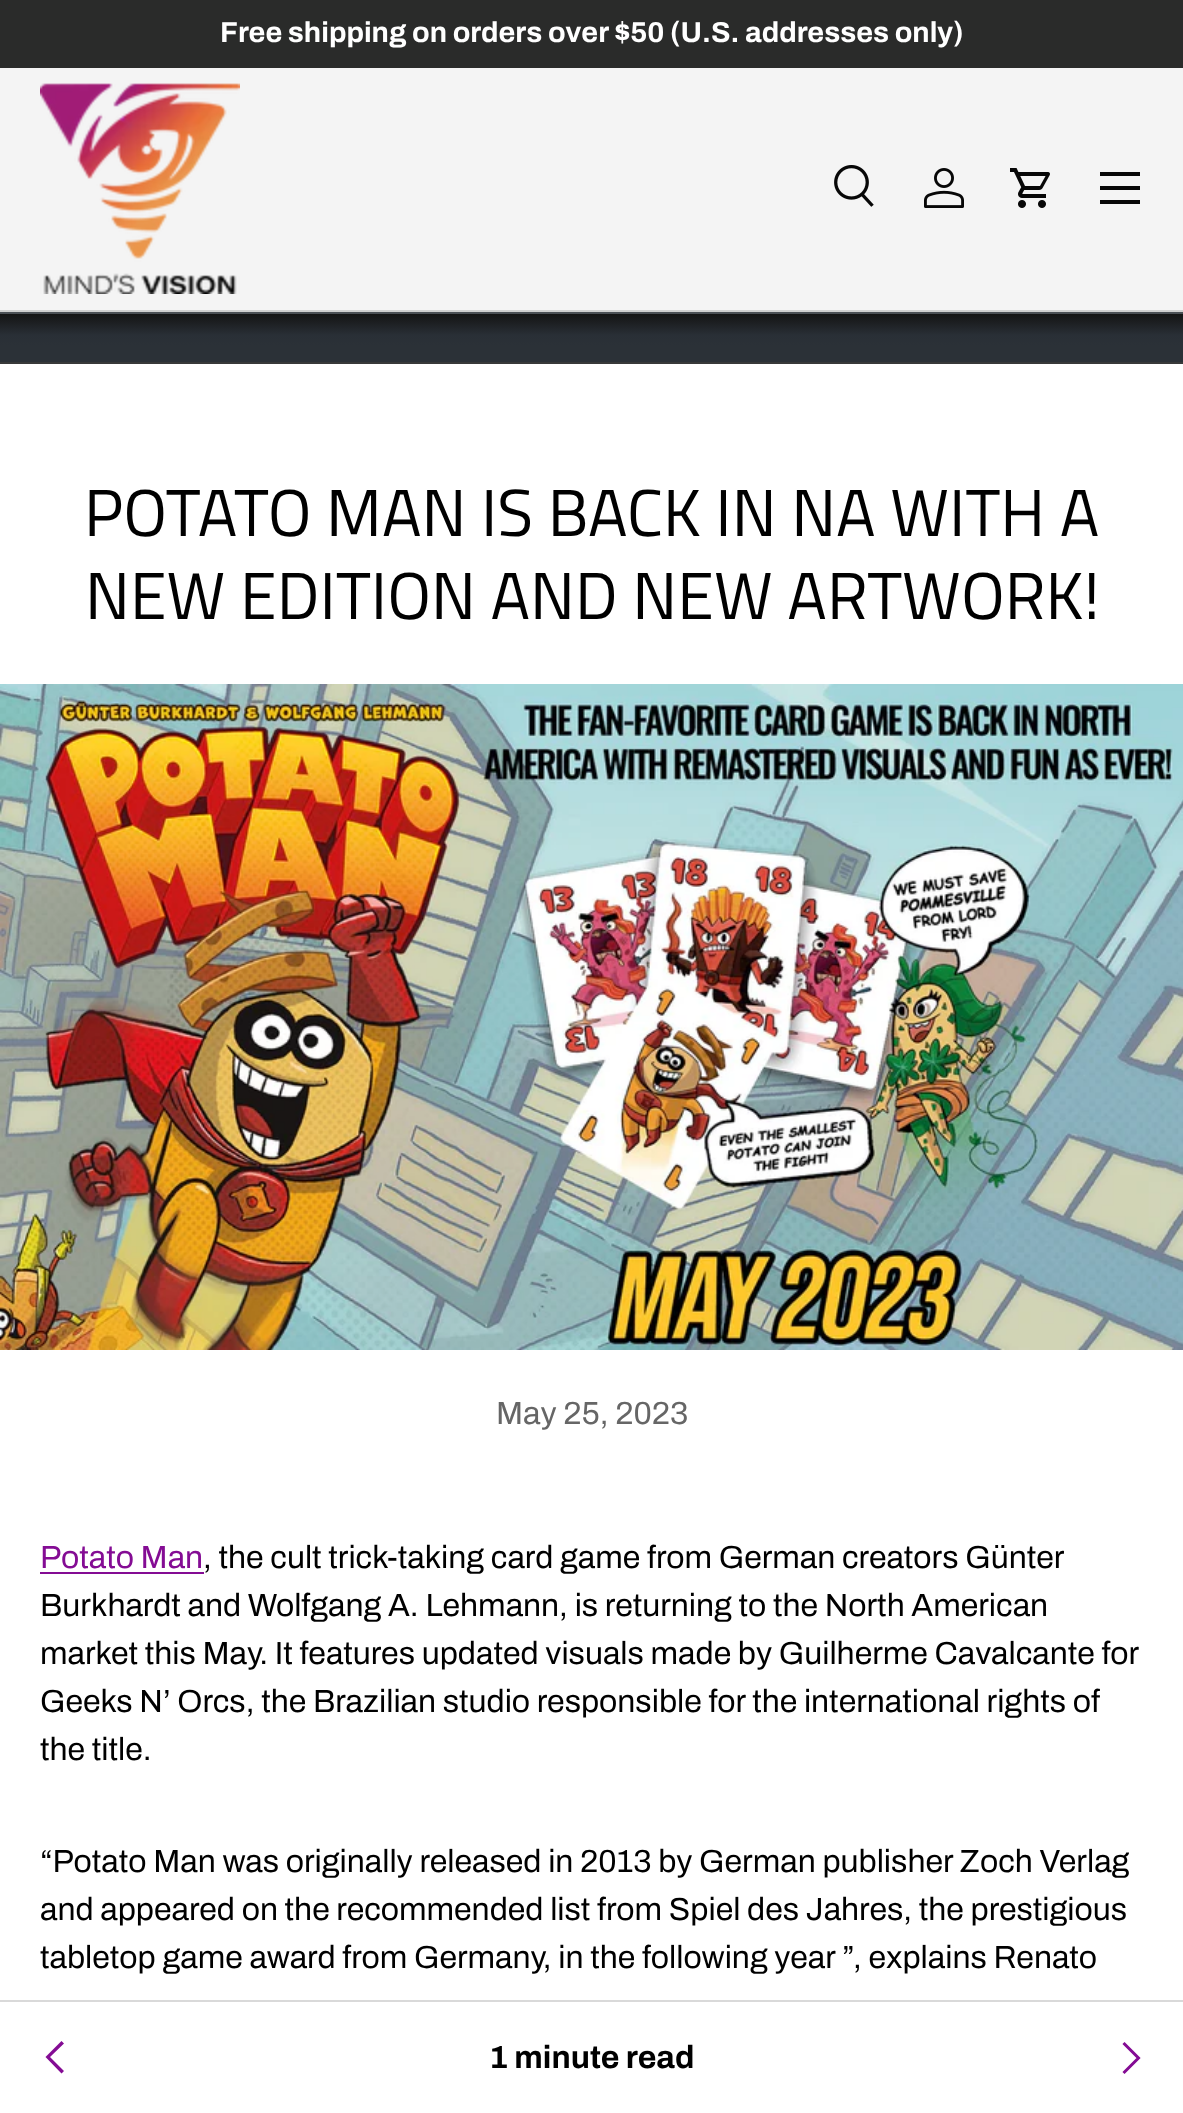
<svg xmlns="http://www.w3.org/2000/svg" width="1183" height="2113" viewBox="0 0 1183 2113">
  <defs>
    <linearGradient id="g1" gradientUnits="userSpaceOnUse" x1="592" y1="362" x2="592" y2="314"><stop offset="0.35" stop-color="#2b3137"/><stop offset="0.56" stop-color="#292f36"/><stop offset="1" stop-color="#141414"/></linearGradient>
  </defs>
  <rect width="100%" height="100%" fill="#ffffff"/>
  <rect x="0" y="0" width="1183" height="68" fill="#2a2b2a"/>
  <text x="220" y="42" font-family="Archivo" font-size="28.8" font-weight="bold" fill="#ffffff">Free shipping on orders over $50 (U.S. addresses only)</text>
  <rect x="0" y="68" width="1183" height="242" fill="#f4f4f4"/>
  <rect x="0" y="310" width="1183" height="2" fill="#d0d0d0"/>
  <image x="40" y="83" width="200" height="211" href="img1.png"/>
  <image x="834" y="165" width="40" height="42" href="img2.png"/>
  <image x="924" y="168" width="40" height="40" href="img3.png"/>
  <image x="1010" y="168" width="40" height="40" href="img4.png"/>
  <rect x="1100" y="172" width="40" height="4" fill="#070707"/>
  <rect x="1100" y="200" width="40" height="4" fill="#070707"/>
  <rect x="1100" y="186" width="40" height="4" fill="#070707"/>
  <rect x="0" y="314" width="1183" height="48" fill="url(#g1)"/>
  <rect x="0" y="312" width="1183" height="2" fill="#4b5055"/>
  <rect x="0" y="362" width="1183" height="2" fill="#383939"/>
  <text x="84" y="536" font-family="Titillium Web" font-size="66.4" fill="#000000">POTATO MAN IS BACK IN NA WITH A</text>
  <text x="85" y="619" font-family="Titillium Web" font-size="66.4" fill="#000000">NEW EDITION AND NEW ARTWORK!</text>
  <image x="0" y="684" width="1183" height="666" href="img5.png"/>
  <text x="496" y="1424" font-family="Archivo" font-size="32" fill="#666666">May 25, 2023</text>
  <text x="40" y="1568" font-family="Archivo" font-size="32" fill="#840c94">Potato Man</text>
  <rect x="40" y="1572" width="164" height="2" fill="#840c94"/>
  <text x="203" y="1568" font-family="Archivo" font-size="32" fill="#000000">, the cult trick-taking card game from German creators Günter</text>
  <text x="40" y="1616" font-family="Archivo" font-size="32" fill="#000000">Burkhardt and Wolfgang A. Lehmann, is returning to the North American</text>
  <text x="40" y="1664" font-family="Archivo" font-size="32" fill="#000000">market this May. It features updated visuals made by Guilherme Cavalcante for</text>
  <text x="40" y="1712" font-family="Archivo" font-size="32" fill="#000000">Geeks N’ Orcs, the Brazilian studio responsible for the international rights of</text>
  <text x="40" y="1760" font-family="Archivo" font-size="32" fill="#000000">the title.</text>
  <text x="40" y="1872" font-family="Archivo" font-size="32" fill="#000000">“Potato Man was originally released in 2013 by German publisher Zoch Verlag</text>
  <text x="40" y="1920" font-family="Archivo" font-size="32" fill="#000000">and appeared on the recommended list from Spiel des Jahres, the prestigious</text>
  <text x="40" y="1968" font-family="Archivo" font-size="32" fill="#000000">tabletop game award from Germany, in the following year ”, explains Renato</text>
  <rect x="0" y="2000" width="1183" height="2" fill="#d9d9d9"/>
  <path d="M45.5 2057L61.5 2041L64 2043.5L50 2057L64 2071L61.5 2073.5Z" fill="#840c94"/>
  <text x="489" y="2068" font-family="Archivo" font-size="32" font-weight="bold" fill="#000000">1 minute read</text>
  <path d="M1123.5 2043L1138.5 2058L1123.5 2073" fill="none" stroke="#840c94" stroke-width="3"/>
</svg>
